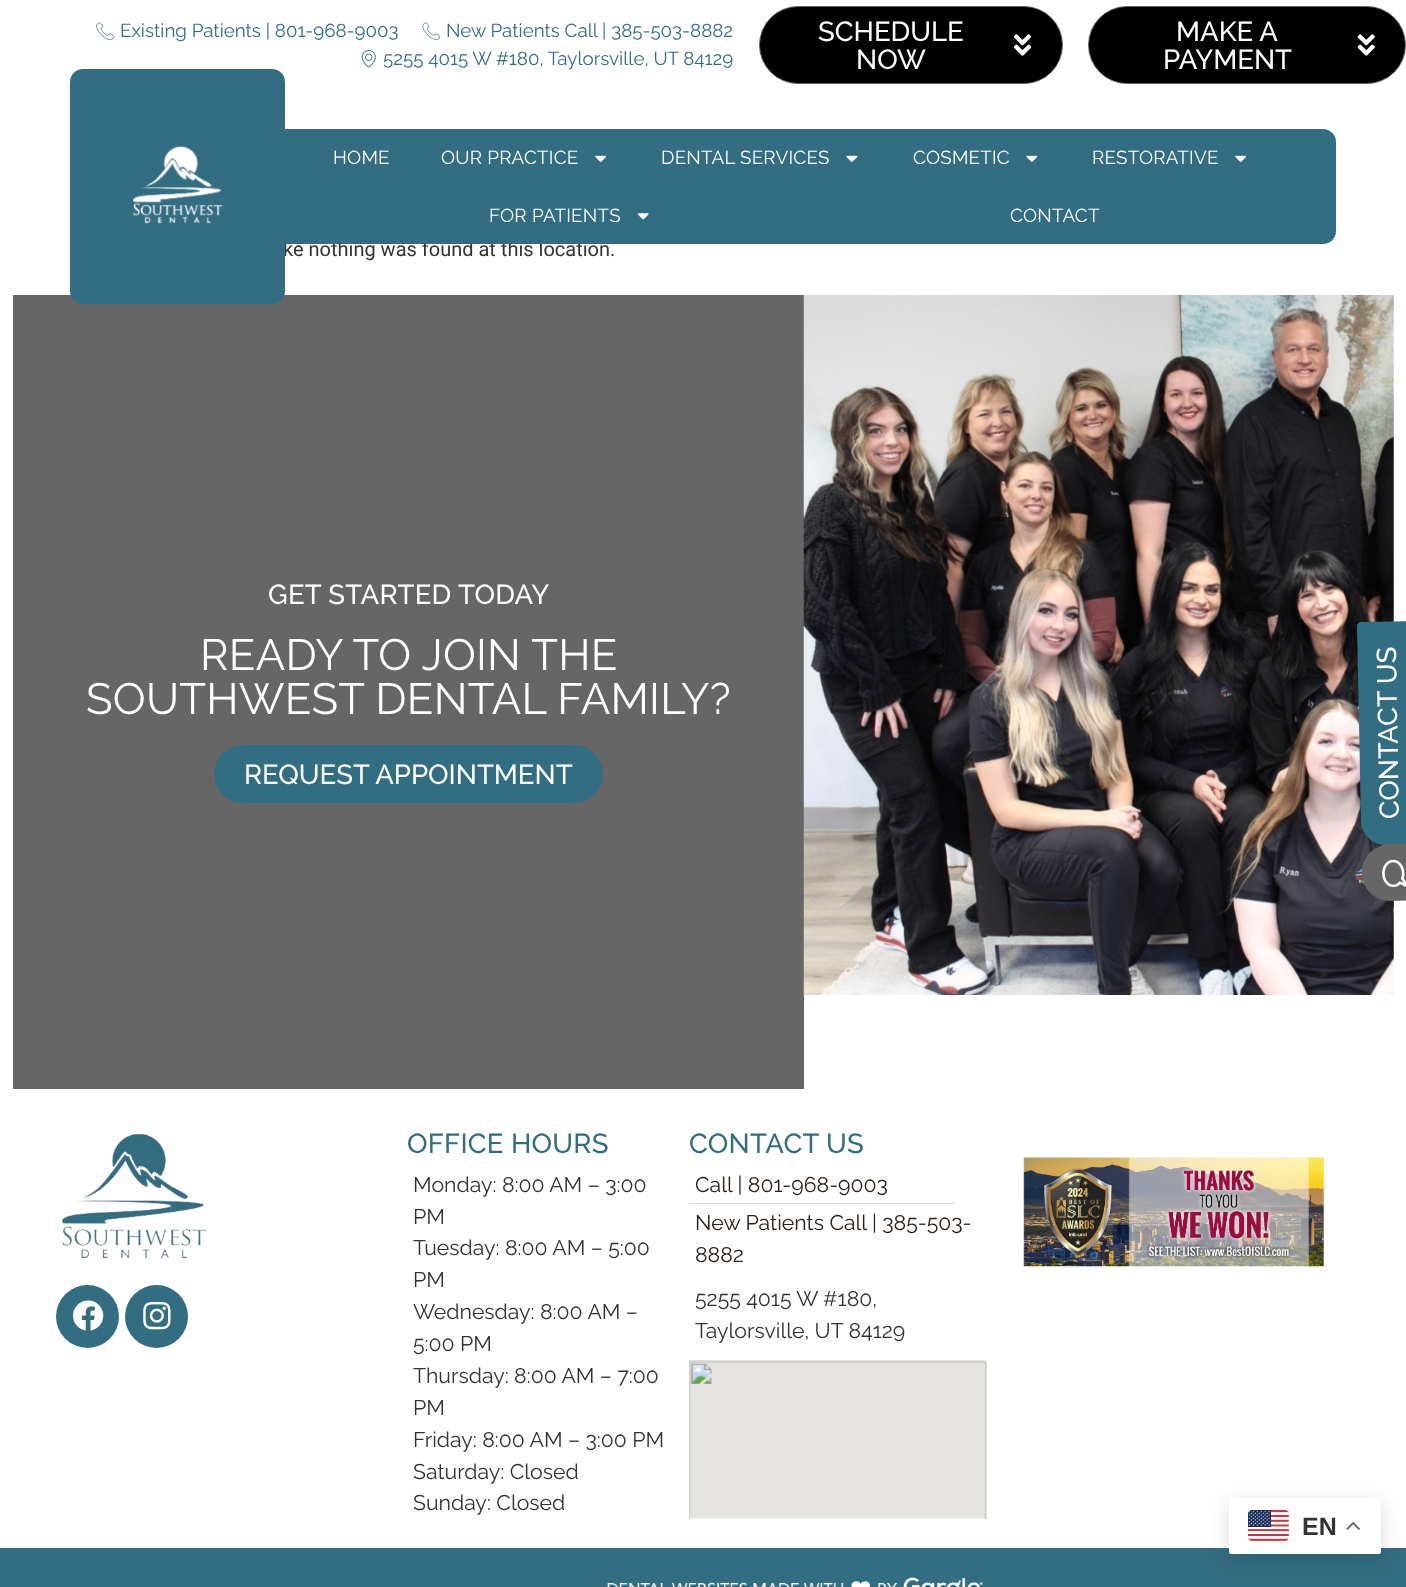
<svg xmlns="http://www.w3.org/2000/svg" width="1406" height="1587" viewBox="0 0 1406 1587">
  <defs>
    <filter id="blur1" x="-50%" y="-200%" width="200%" height="500%"><feGaussianBlur stdDeviation="9.5"/></filter>
  </defs>
  <rect width="100%" height="100%" fill="#ffffff"/>
  <image x="96" y="22" width="18" height="19" href="img1.png"/>
  <text x="120" y="37" font-family="Raleway" font-size="18.75" fill="#336d81">Existing Patients | 801-968-9003</text>
  <image x="422" y="22" width="18" height="19" href="img2.png"/>
  <text x="446" y="37" font-family="Raleway" font-size="18.75" fill="#336d81">New Patients Call | 385-503-8882</text>
  <image x="361" y="50" width="15" height="18" href="img3.png"/>
  <text x="383" y="65" font-family="Raleway" font-size="18.75" fill="#336d81">5255 4015 W #180, Taylorsville, UT 84129</text>
  <rect x="759.5" y="6.5" width="303" height="77" rx="38.5" fill="#000000" stroke="#666666"/>
  <text x="818" y="41" font-family="Raleway" font-size="27.5" font-weight="500" fill="#ffffff">SCHEDULE</text>
  <text x="856" y="69" font-family="Raleway" font-size="27.5" font-weight="500" fill="#ffffff">NOW</text>
  <image x="1013" y="34" width="19" height="22" href="img4.png"/>
  <rect x="1088.5" y="6.5" width="317" height="77" rx="38.5" fill="#000000" stroke="#666666"/>
  <text x="1176" y="41" font-family="Raleway" font-size="27.5" font-weight="500" fill="#ffffff">MAKE A</text>
  <text x="1163" y="69" font-family="Raleway" font-size="27.5" font-weight="500" fill="#ffffff">PAYMENT</text>
  <image x="1357" y="34" width="18" height="22" href="img5.png"/>
  <text x="283" y="256" font-family="Roboto" font-size="20" fill="#333333">ke nothing was found at this location.</text>
  <rect x="70" y="129" width="1266" height="115" rx="13" fill="#336d81"/>
  <rect x="13" y="295" width="791" height="794" fill="#666666"/>
  <rect x="70" y="69" width="215" height="235" rx="13" fill="#336d81"/>
  <image x="132" y="146" width="91" height="78" href="img6.png"/>
  <text x="333" y="164" font-family="Raleway" font-size="18.75" letter-spacing="0.25" fill="#ffffff">HOME</text>
  <text x="441" y="164" font-family="Raleway" font-size="18.75" letter-spacing="0.25" fill="#ffffff">OUR PRACTICE</text>
  <image x="595" y="155" width="11" height="7" href="img7.png"/>
  <text x="661" y="164" font-family="Raleway" font-size="18.75" letter-spacing="0.25" fill="#ffffff">DENTAL SERVICES</text>
  <image x="846" y="155" width="12" height="7" href="img8.png"/>
  <text x="913" y="164" font-family="Raleway" font-size="18.75" letter-spacing="0.25" fill="#ffffff">COSMETIC</text>
  <image x="1026" y="155" width="12" height="7" href="img8.png"/>
  <text x="1092" y="164" font-family="Raleway" font-size="18.75" letter-spacing="0.25" fill="#ffffff">RESTORATIVE</text>
  <image x="1235" y="155" width="11" height="7" href="img7.png"/>
  <text x="489" y="222" font-family="Raleway" font-size="18.75" letter-spacing="0.25" fill="#ffffff">FOR PATIENTS</text>
  <image x="637" y="213" width="12" height="7" href="img9.png"/>
  <text x="1010" y="222" font-family="Raleway" font-size="18.75" letter-spacing="0.25" fill="#ffffff">CONTACT</text>
  <image x="803" y="295" width="591" height="700" href="img11.png"/>
  <path d="M1361 820L1357 626C1357 624 1359 622 1361 622L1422 621L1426 844L1386 845C1372 845 1361 834 1361 820Z" fill="#336d81"/>
  <text x="1399" y="819" transform="rotate(-91 1399 819)" font-family="Raleway" font-size="27.5" font-weight="500" fill="#ffffff">CONTACT US</text>
  <path d="M1362 873C1361 858 1374 845 1389 844H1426L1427 900L1390 901C1375 901 1362 889 1362 873Z" fill="#666666"/>
  <image x="1382" y="859" width="24" height="28" href="img10.png"/>
  <text x="268" y="604" font-family="Raleway" font-size="27.5" font-weight="500" letter-spacing="0.25" fill="#ffffff">GET STARTED TODAY</text>
  <text x="200" y="670" font-family="Raleway" font-size="43.75" letter-spacing="0.25" fill="#ffffff">READY TO JOIN THE</text>
  <text x="86" y="714" font-family="Raleway" font-size="43.75" letter-spacing="0.25" fill="#ffffff">SOUTHWEST DENTAL FAMILY?</text>
  <rect x="214" y="745" width="389" height="58" rx="29" fill="#336d81"/>
  <text x="244" y="784" font-family="Raleway" font-size="27.5" font-weight="500" fill="#ffffff">REQUEST APPOINTMENT</text>
  <image x="62" y="1134" width="145" height="125" href="img12.png"/>
  <circle cx="87.5" cy="1316.5" r="31.5" fill="#336d81"/>
  <image x="73" y="1300" width="31" height="31" href="img13.png"/>
  <circle cx="156.5" cy="1316.5" r="31.5" fill="#336d81"/>
  <image x="143" y="1301" width="28" height="29" href="img14.png"/>
  <text x="407" y="1153" font-family="Raleway" font-size="27.5" font-weight="500" letter-spacing="0.25" fill="#336d81">OFFICE HOURS</text>
  <text x="413" y="1192" font-family="Raleway" font-size="21.25" fill="#333333">Monday: 8:00 AM – 3:00</text>
  <text x="413" y="1224" font-family="Raleway" font-size="21.25" fill="#333333">PM</text>
  <text x="413" y="1255" font-family="Raleway" font-size="21.25" fill="#333333">Tuesday: 8:00 AM – 5:00</text>
  <text x="413" y="1287" font-family="Raleway" font-size="21.25" fill="#333333">PM</text>
  <text x="413" y="1319" font-family="Raleway" font-size="21.25" fill="#333333">Wednesday: 8:00 AM –</text>
  <text x="413" y="1351" font-family="Raleway" font-size="21.25" fill="#333333">5:00 PM</text>
  <text x="413" y="1383" font-family="Raleway" font-size="21.25" fill="#333333">Thursday: 8:00 AM – 7:00</text>
  <text x="413" y="1415" font-family="Raleway" font-size="21.25" fill="#333333">PM</text>
  <text x="413" y="1447" font-family="Raleway" font-size="21.25" fill="#333333">Friday: 8:00 AM – 3:00 PM</text>
  <text x="413" y="1479" font-family="Raleway" font-size="21.25" fill="#333333">Saturday: Closed</text>
  <text x="413" y="1510" font-family="Raleway" font-size="21.25" fill="#333333">Sunday: Closed</text>
  <text x="689" y="1153" font-family="Raleway" font-size="27.5" font-weight="500" letter-spacing="0.25" fill="#336d81">CONTACT US</text>
  <text x="695" y="1192" font-family="Raleway" font-size="21.25" fill="#2a221a">Call | 801-968-9003</text>
  <rect x="689" y="1203" width="267" height="1" fill="#dddddd"/>
  <text x="695" y="1230" font-family="Raleway" font-size="21.25" fill="#2a221a">New Patients Call | 385-503-</text>
  <text x="695" y="1262" font-family="Raleway" font-size="21.25" fill="#2a221a">8882</text>
  <text x="695" y="1306" font-family="Raleway" font-size="21.25" fill="#333333">5255 4015 W #180,</text>
  <text x="695" y="1338" font-family="Raleway" font-size="21.25" fill="#333333">Taylorsville, UT 84129</text>
  <image x="689" y="1360" width="298" height="159" href="img15.png"/>
  <image x="1023" y="1157" width="301" height="110" href="img16.png"/>
  <rect x="0" y="1548" width="1406" height="39" fill="#336d81"/>
  <image x="607" y="1577" width="376" height="10" href="img17.png"/>
  <rect x="1229" y="1504" width="152" height="56" rx="2.5" fill="#000000" fill-opacity="0.15" filter="url(#blur1)"/>
  <rect x="1229" y="1498" width="152" height="56" rx="2.5" fill="#ffffff"/>
  <image x="1248" y="1510" width="41" height="31" href="img18.png"/>
  <text x="1302" y="1535" font-family="Liberation Sans" font-size="25" font-weight="bold" fill="#333333">EN</text>
  <image x="1346" y="1522" width="14" height="8" href="img19.png"/>
</svg>
